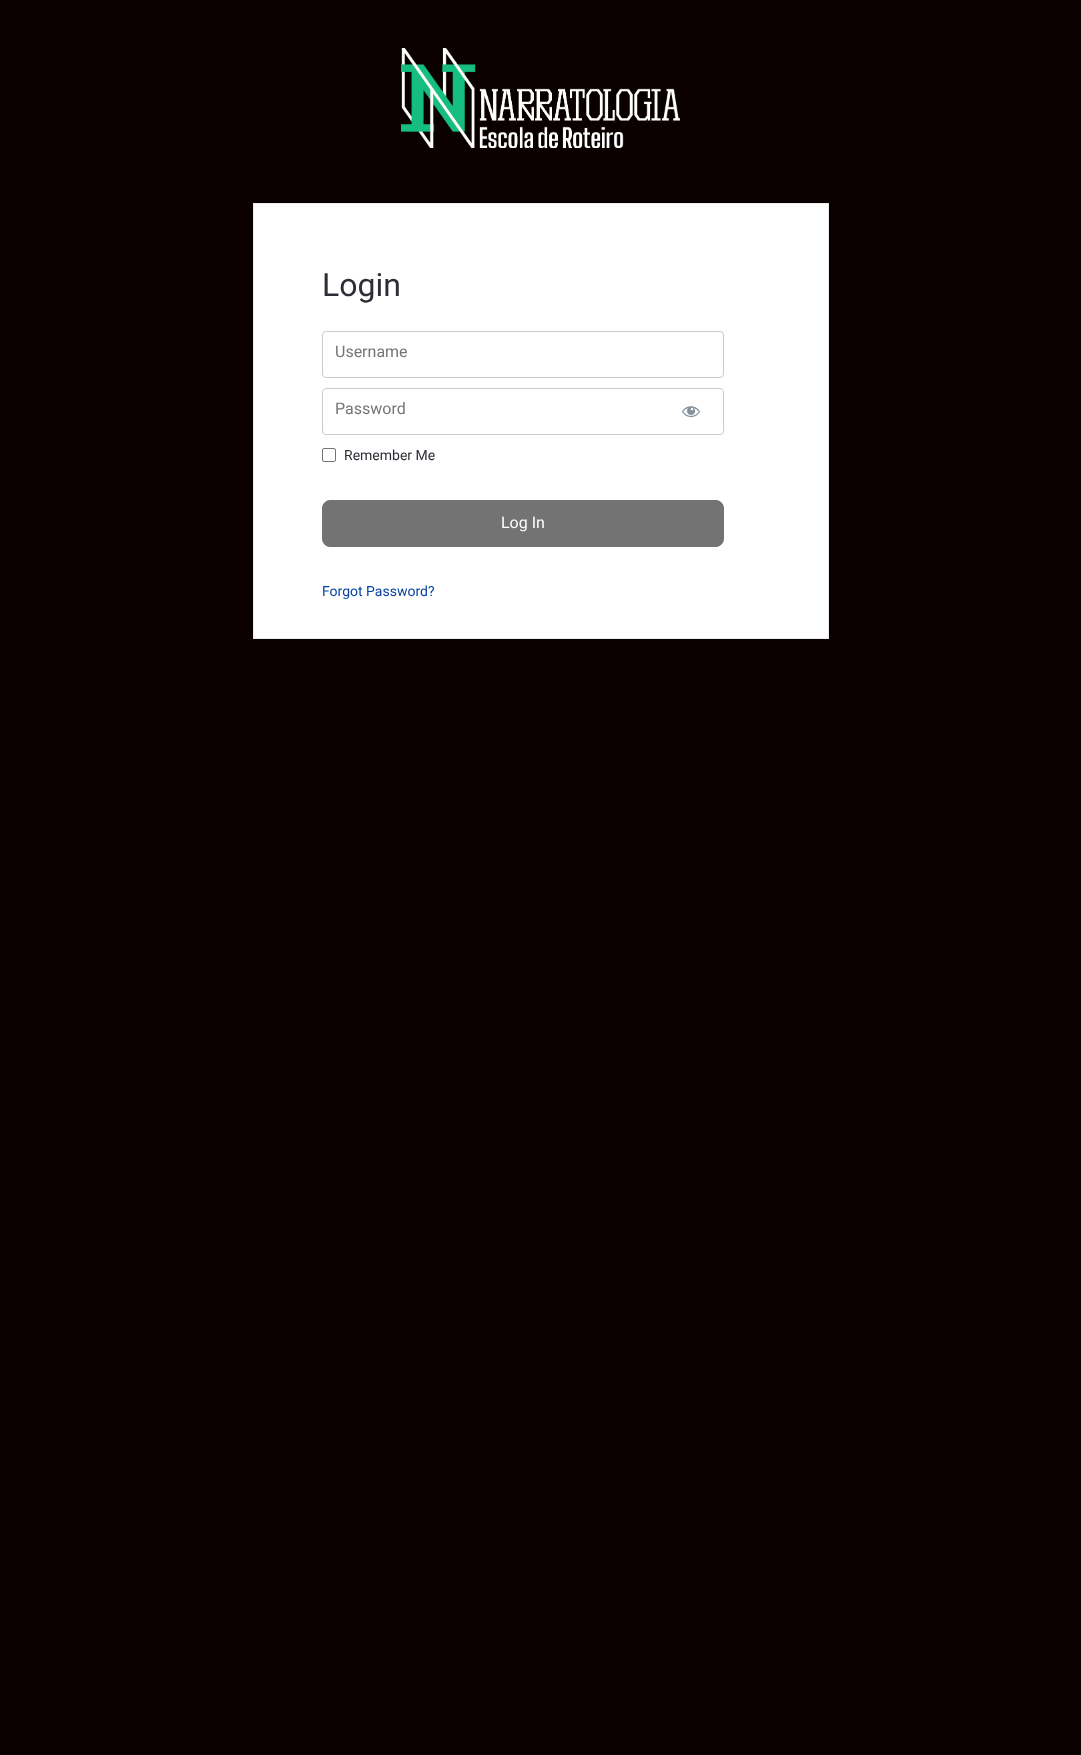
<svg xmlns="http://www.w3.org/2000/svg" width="1081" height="1755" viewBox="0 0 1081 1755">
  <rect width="100%" height="100%" fill="#0a0000"/>
  <image x="401" y="48" width="279" height="100" href="img1.png"/>
  <rect x="253.5" y="203.5" width="575" height="435" fill="#ffffff" stroke="#ebebeb"/>
  <text x="322" y="296" font-family="Roboto" font-size="32" fill="#2c2d36">Login</text>
  <rect x="322.5" y="331.5" width="401" height="46" rx="3.5" fill="none" stroke="#cccccc"/>
  <text x="335" y="357" font-family="Roboto" font-size="16" fill="#757575">Username</text>
  <rect x="322.5" y="388.5" width="401" height="46" rx="3.5" fill="none" stroke="#cccccc"/>
  <image x="682" y="406" width="18" height="12" href="img2.png"/>
  <text x="335" y="414" font-family="Roboto" font-size="16" fill="#757575">Password</text>
  <rect x="322.5" y="448.5" width="13" height="13" rx="1.5" fill="none" stroke="#767676"/>
  <text x="344" y="460" font-family="Roboto" font-size="14" fill="#2c2d36">Remember Me</text>
  <rect x="322.5" y="500.5" width="401" height="46" rx="7.5" fill="#737373" stroke="#737373"/>
  <text x="501" y="528" font-family="Roboto" font-size="16" fill="#ffffff">Log In</text>
  <text x="322" y="596" font-family="Roboto" font-size="14" fill="#06429e">Forgot Password?</text>
</svg>
